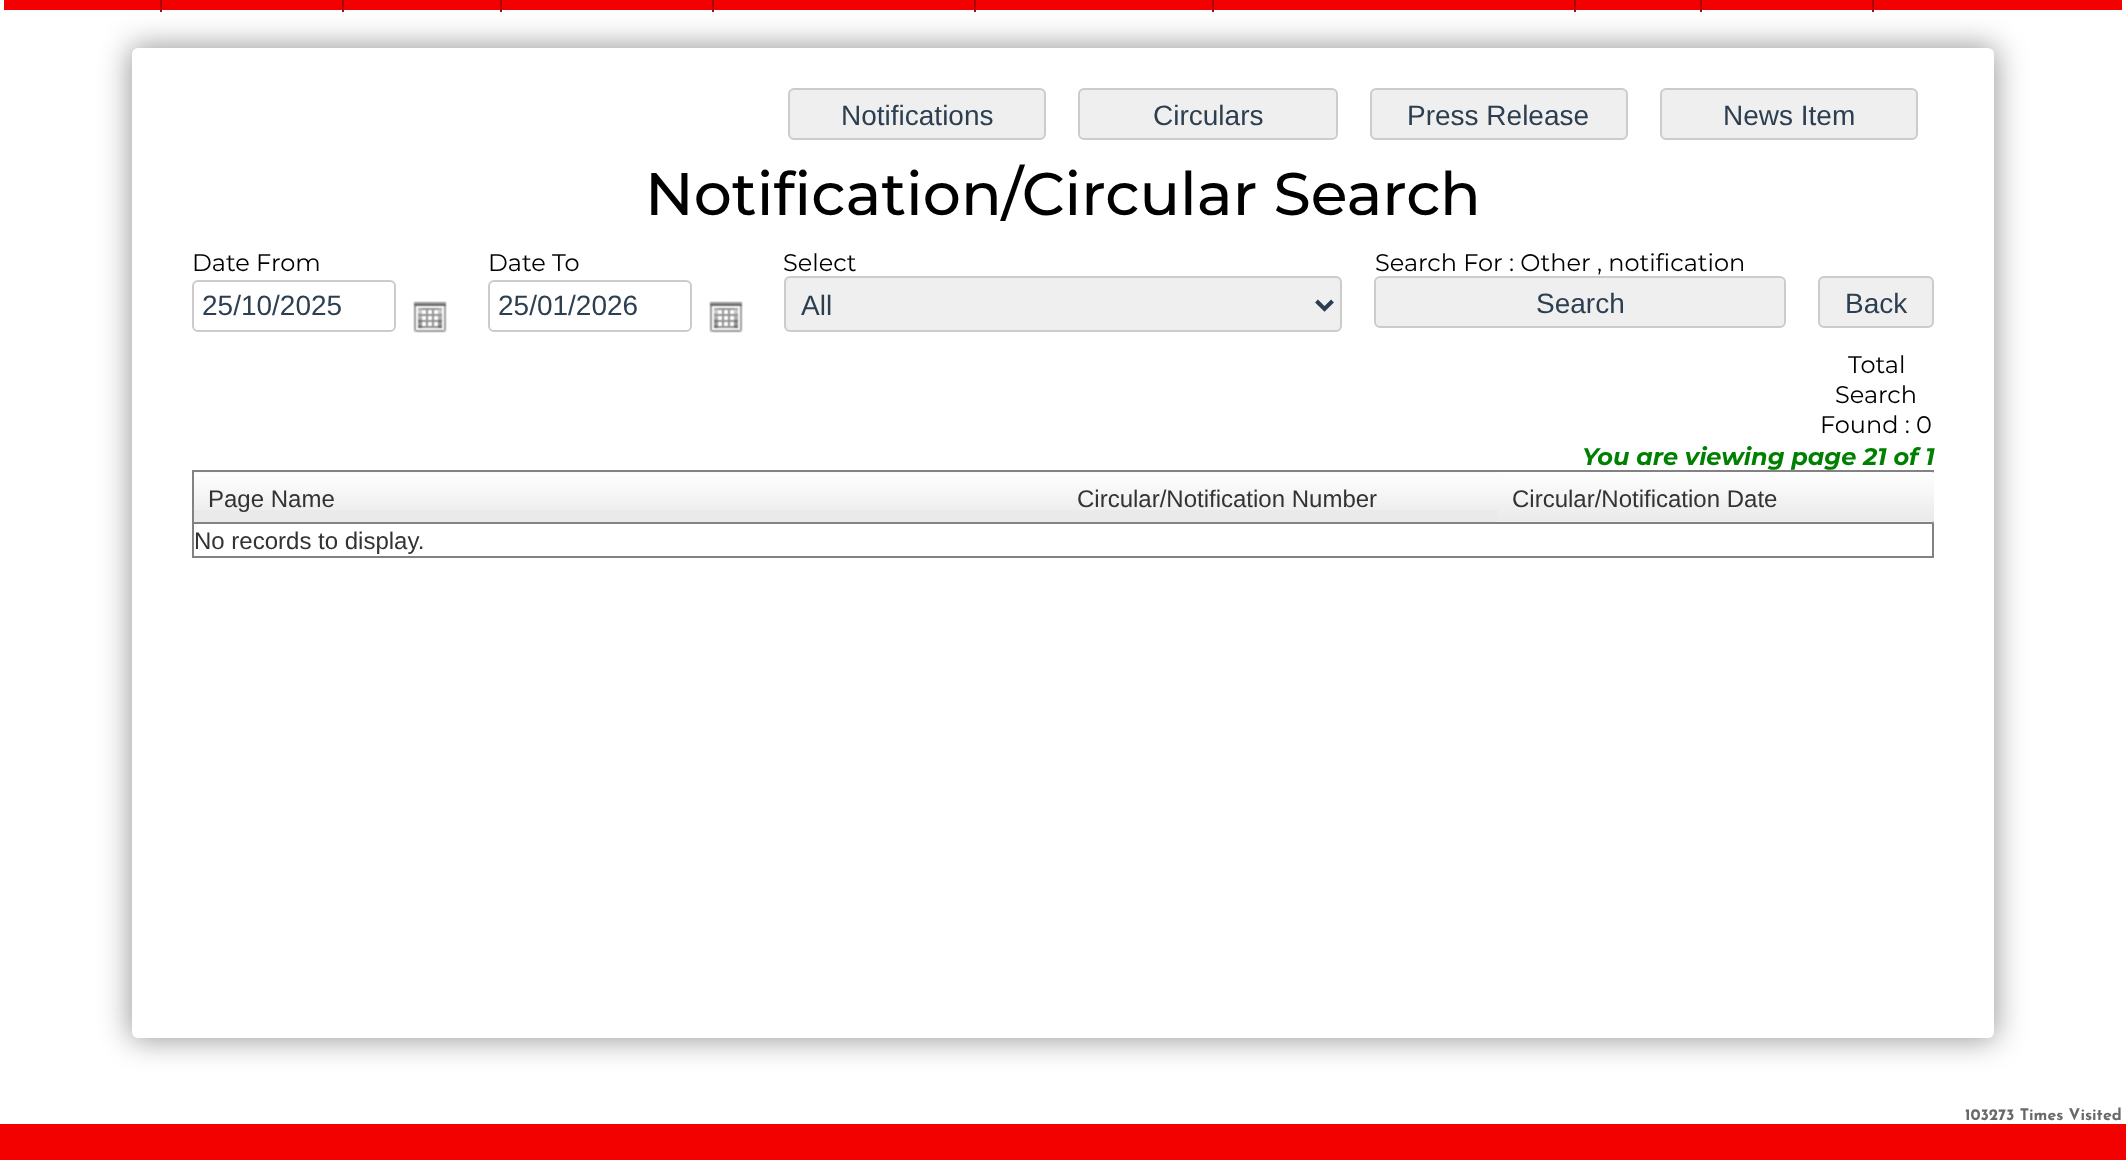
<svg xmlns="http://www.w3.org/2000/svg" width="2126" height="1160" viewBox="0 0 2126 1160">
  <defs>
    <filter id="blur1" x="-50%" y="-200%" width="200%" height="500%"><feGaussianBlur stdDeviation="15"/></filter>
  </defs>
  <rect width="100%" height="100%" fill="#ffffff"/>
  <rect x="130" y="46" width="1866" height="994" rx="8" fill="#000000" fill-opacity="0.4" filter="url(#blur1)"/>
  <rect x="4" y="0" width="2118" height="10" fill="#f30000"/>
  <rect x="160" y="0" width="2" height="12" fill="#ab0808"/>
  <rect x="342" y="0" width="2" height="12" fill="#ab0808"/>
  <rect x="500" y="0" width="2" height="12" fill="#ab0808"/>
  <rect x="712" y="0" width="2" height="12" fill="#ab0808"/>
  <rect x="974" y="0" width="2" height="12" fill="#ab0808"/>
  <rect x="1212" y="0" width="2" height="12" fill="#ab0808"/>
  <rect x="1574" y="0" width="2" height="12" fill="#ab0808"/>
  <rect x="1700" y="0" width="2" height="12" fill="#ab0808"/>
  <rect x="1872" y="0" width="2" height="12" fill="#ab0808"/>
  <rect x="132" y="48" width="1862" height="990" rx="6" fill="#ffffff"/>
  <rect x="789" y="89" width="256" height="50" rx="5" fill="#efefef" stroke="#cccccc" stroke-width="2"/>
  <text x="841" y="125" font-family="Liberation Sans" font-size="28" fill="#2c3e50">Notifications</text>
  <rect x="1079" y="89" width="258" height="50" rx="5" fill="#efefef" stroke="#cccccc" stroke-width="2"/>
  <text x="1153" y="125" font-family="Liberation Sans" font-size="28" fill="#2c3e50">Circulars</text>
  <rect x="1371" y="89" width="256" height="50" rx="5" fill="#efefef" stroke="#cccccc" stroke-width="2"/>
  <text x="1407" y="125" font-family="Liberation Sans" font-size="28" fill="#2c3e50">Press Release</text>
  <rect x="1661" y="89" width="256" height="50" rx="5" fill="#efefef" stroke="#cccccc" stroke-width="2"/>
  <text x="1723" y="125" font-family="Liberation Sans" font-size="28" fill="#2c3e50">News Item</text>
  <text x="645" y="215" font-family="Montserrat" font-size="60" font-weight="500" fill="#000000">Notification/Circular Search</text>
  <text x="192" y="271" font-family="Montserrat" font-size="24" fill="#000000">Date From</text>
  <rect x="193" y="281" width="202" height="50" rx="5" fill="none" stroke="#cccccc" stroke-width="2"/>
  <text x="202" y="315" font-family="Liberation Sans" font-size="28" fill="#2c3e50">25/10/2025</text>
  <image x="413" y="301" width="34" height="32" href="img1.png"/>
  <text x="488" y="271" font-family="Montserrat" font-size="24" fill="#000000">Date To</text>
  <rect x="489" y="281" width="202" height="50" rx="5" fill="none" stroke="#cccccc" stroke-width="2"/>
  <text x="498" y="315" font-family="Liberation Sans" font-size="28" fill="#2c3e50">25/01/2026</text>
  <image x="709" y="301" width="34" height="32" href="img1.png"/>
  <text x="783" y="271" font-family="Montserrat" font-size="24" fill="#000000">Select</text>
  <rect x="785" y="277" width="556" height="54" rx="5" fill="#efefef" stroke="#cccccc" stroke-width="2"/>
  <path d="M1316.5 301L1324.5 309L1332.5 301" fill="none" stroke="#2c3e50" stroke-width="4"/>
  <text x="801" y="315" font-family="Liberation Sans" font-size="28" fill="#2c3e50">All</text>
  <text x="1375" y="271" font-family="Montserrat" font-size="24" fill="#000000">Search For : Other , notification</text>
  <rect x="1375" y="277" width="410" height="50" rx="5" fill="#efefef" stroke="#cccccc" stroke-width="2"/>
  <text x="1536" y="313" font-family="Liberation Sans" font-size="28" fill="#2c3e50">Search</text>
  <rect x="1819" y="277" width="114" height="50" rx="5" fill="#efefef" stroke="#cccccc" stroke-width="2"/>
  <text x="1845" y="313" font-family="Liberation Sans" font-size="28" fill="#2c3e50">Back</text>
  <text x="1848" y="373" font-family="Montserrat" font-size="24" fill="#000000">Total</text>
  <text x="1835" y="403" font-family="Montserrat" font-size="24" fill="#000000">Search</text>
  <text x="1820" y="433" font-family="Montserrat" font-size="24" fill="#000000">Found : 0</text>
  <text x="1582" y="465" font-family="Montserrat" font-size="24" font-weight="bold" font-style="italic" fill="#008000">You are viewing page 21 of 1</text>
  <rect x="193" y="471" width="1740" height="86" fill="none" stroke="#828282" stroke-width="2"/>
  <rect x="194" y="472" width="1304" height="50" fill="#eaeaea"/>
  <image x="194" y="472" width="870" height="38" href="img2.png"/>
  <rect x="194" y="522" width="1304" height="2" fill="#828282"/>
  <text x="208" y="507" font-family="Liberation Sans" font-size="24" fill="#333333">Page Name</text>
  <image x="1064" y="472" width="434" height="38" href="img3.png"/>
  <text x="1077" y="507" font-family="Liberation Sans" font-size="24" fill="#333333">Circular/Notification Number</text>
  <image x="1498" y="472" width="436" height="51" href="img4.png"/>
  <rect x="1498" y="522" width="434" height="2" fill="#828282"/>
  <text x="1512" y="507" font-family="Liberation Sans" font-size="24" fill="#333333">Circular/Notification Date</text>
  <text x="194" y="549" font-family="Liberation Sans" font-size="24" fill="#333333">No records to display.</text>
  <text x="1965" y="1120" font-family="Josefin Sans" font-size="16" font-weight="bold" fill="#696969">103273 Times Visited</text>
  <rect x="0" y="1124" width="2126" height="36" fill="#f30000"/>
</svg>
